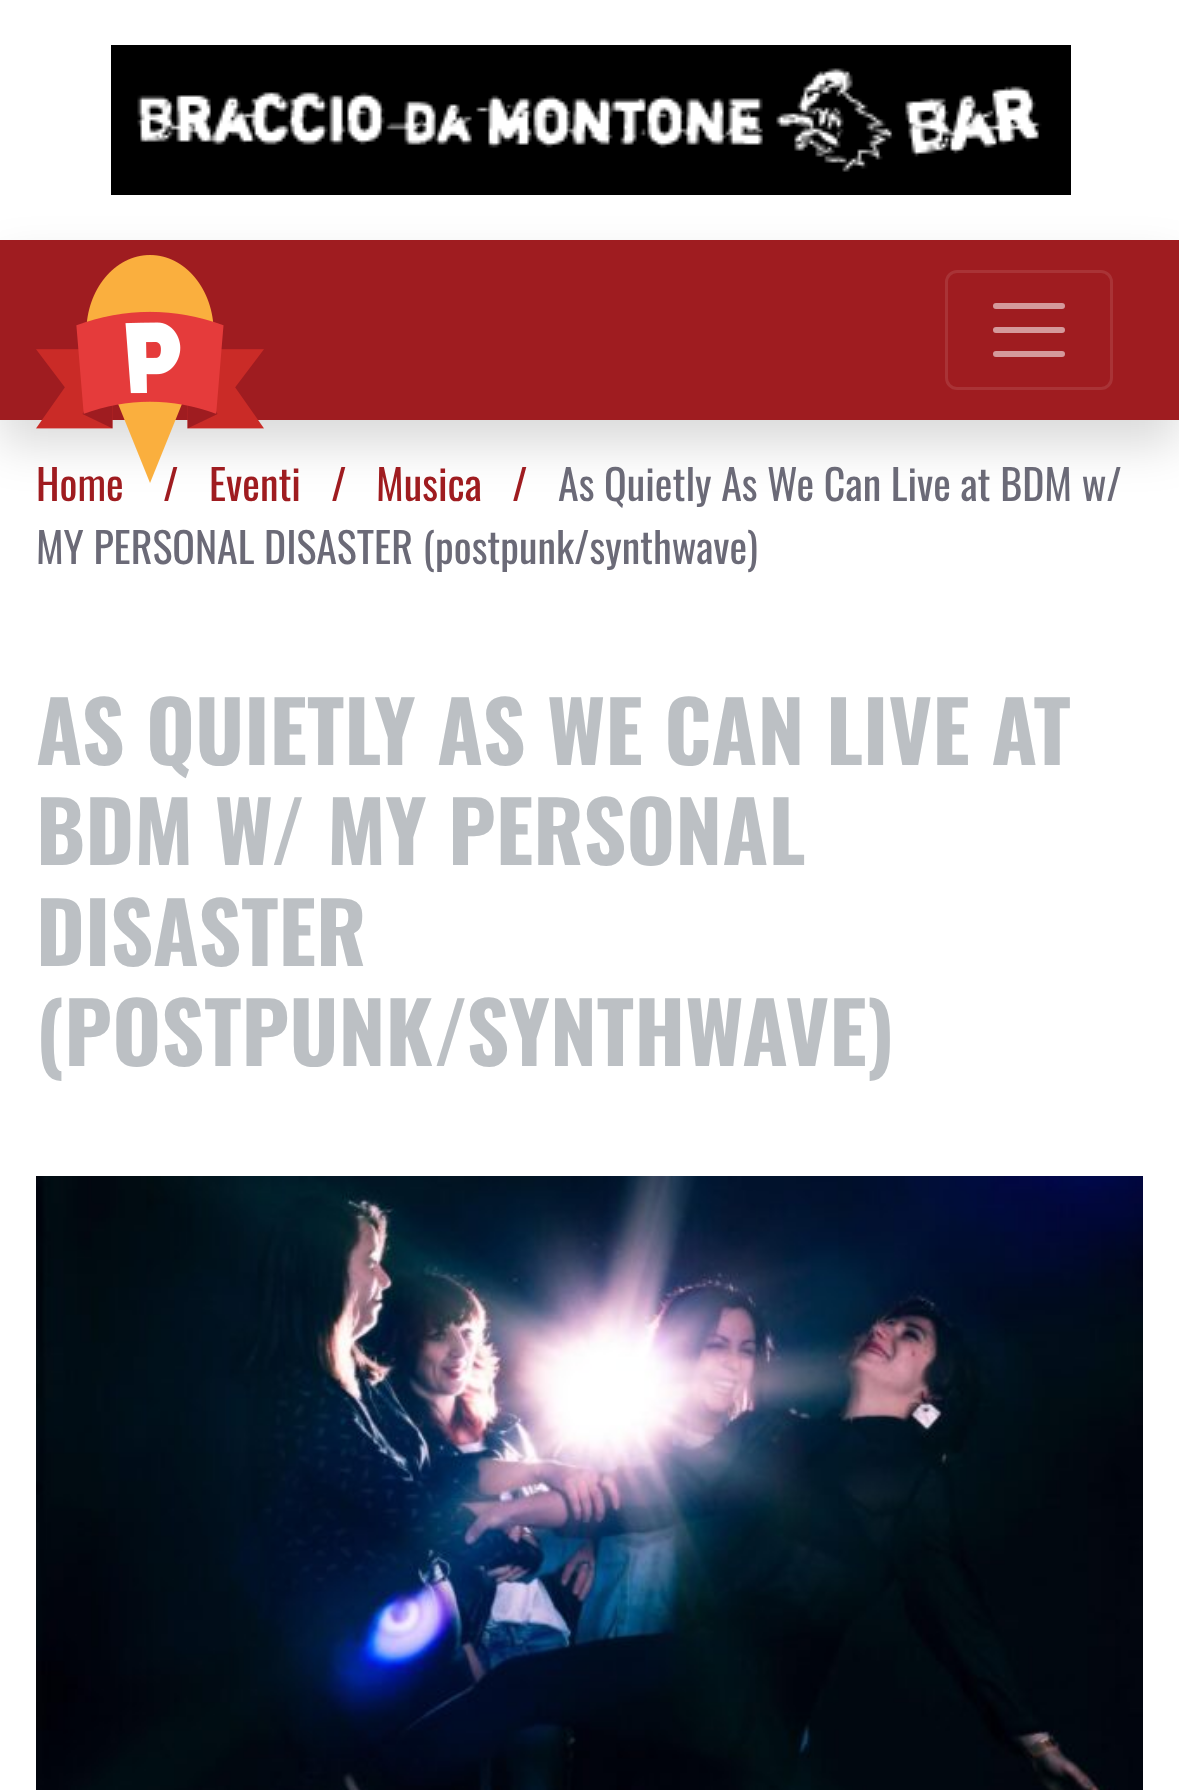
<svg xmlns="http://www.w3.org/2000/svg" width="1179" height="1790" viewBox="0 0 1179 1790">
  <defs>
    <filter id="blur1" x="-50%" y="-200%" width="200%" height="500%"><feGaussianBlur stdDeviation="24"/></filter>
  </defs>
  <rect width="100%" height="100%" fill="#ffffff"/>
  <image x="111" y="45" width="960" height="150" href="img1.png"/>
  <rect x="0" y="264" width="1179" height="180" fill="#000000" fill-opacity="0.15" filter="url(#blur1)"/>
  <rect x="0" y="240" width="1179" height="180" fill="#9f1c20"/>
  <text x="36" y="501" font-family="Oswald" font-size="42" fill="#9f1c20">Home</text>
  <text x="163" y="501" font-family="Oswald" font-size="42" fill="#9f1c20">/</text>
  <text x="209" y="501" font-family="Oswald" font-size="42" fill="#9f1c20">Eventi</text>
  <image x="36" y="255" width="228" height="228" href="img2.png"/>
  <rect x="946.5" y="271.5" width="165" height="117" rx="10.5" fill="none" stroke="#a93336" stroke-width="3"/>
  <path d="M996 306H1062M996 330H1062M996 354H1062" fill="none" stroke="#d4999b" stroke-width="6" stroke-linecap="round"/>
  <text x="331" y="501" font-family="Oswald" font-size="42" fill="#9f1c20">/</text>
  <text x="376" y="501" font-family="Oswald" font-size="42" fill="#9f1c20">Musica</text>
  <text x="512" y="501" font-family="Oswald" font-size="42" fill="#9f1c20">/</text>
  <text x="558" y="501" font-family="Oswald" font-size="42" fill="#6b6a77">As Quietly As We Can Live at BDM w/</text>
  <text x="36" y="564" font-family="Oswald" font-size="42" fill="#6b6a77">MY PERSONAL DISASTER (postpunk/synthwave)</text>
  <text x="36" y="765" font-family="Oswald" font-size="83.75" font-weight="bold" fill="#bcc0c4">AS QUIETLY AS WE CAN LIVE AT</text>
  <text x="36" y="865" font-family="Oswald" font-size="83.75" font-weight="bold" fill="#bcc0c4">BDM W/ MY PERSONAL</text>
  <text x="36" y="966" font-family="Oswald" font-size="83.75" font-weight="bold" fill="#bcc0c4">DISASTER</text>
  <text x="36" y="1066" font-family="Oswald" font-size="83.75" font-weight="bold" fill="#bcc0c4">(POSTPUNK/SYNTHWAVE)</text>
  <image x="36" y="1176" width="1107" height="614" href="img3.png"/>
</svg>
